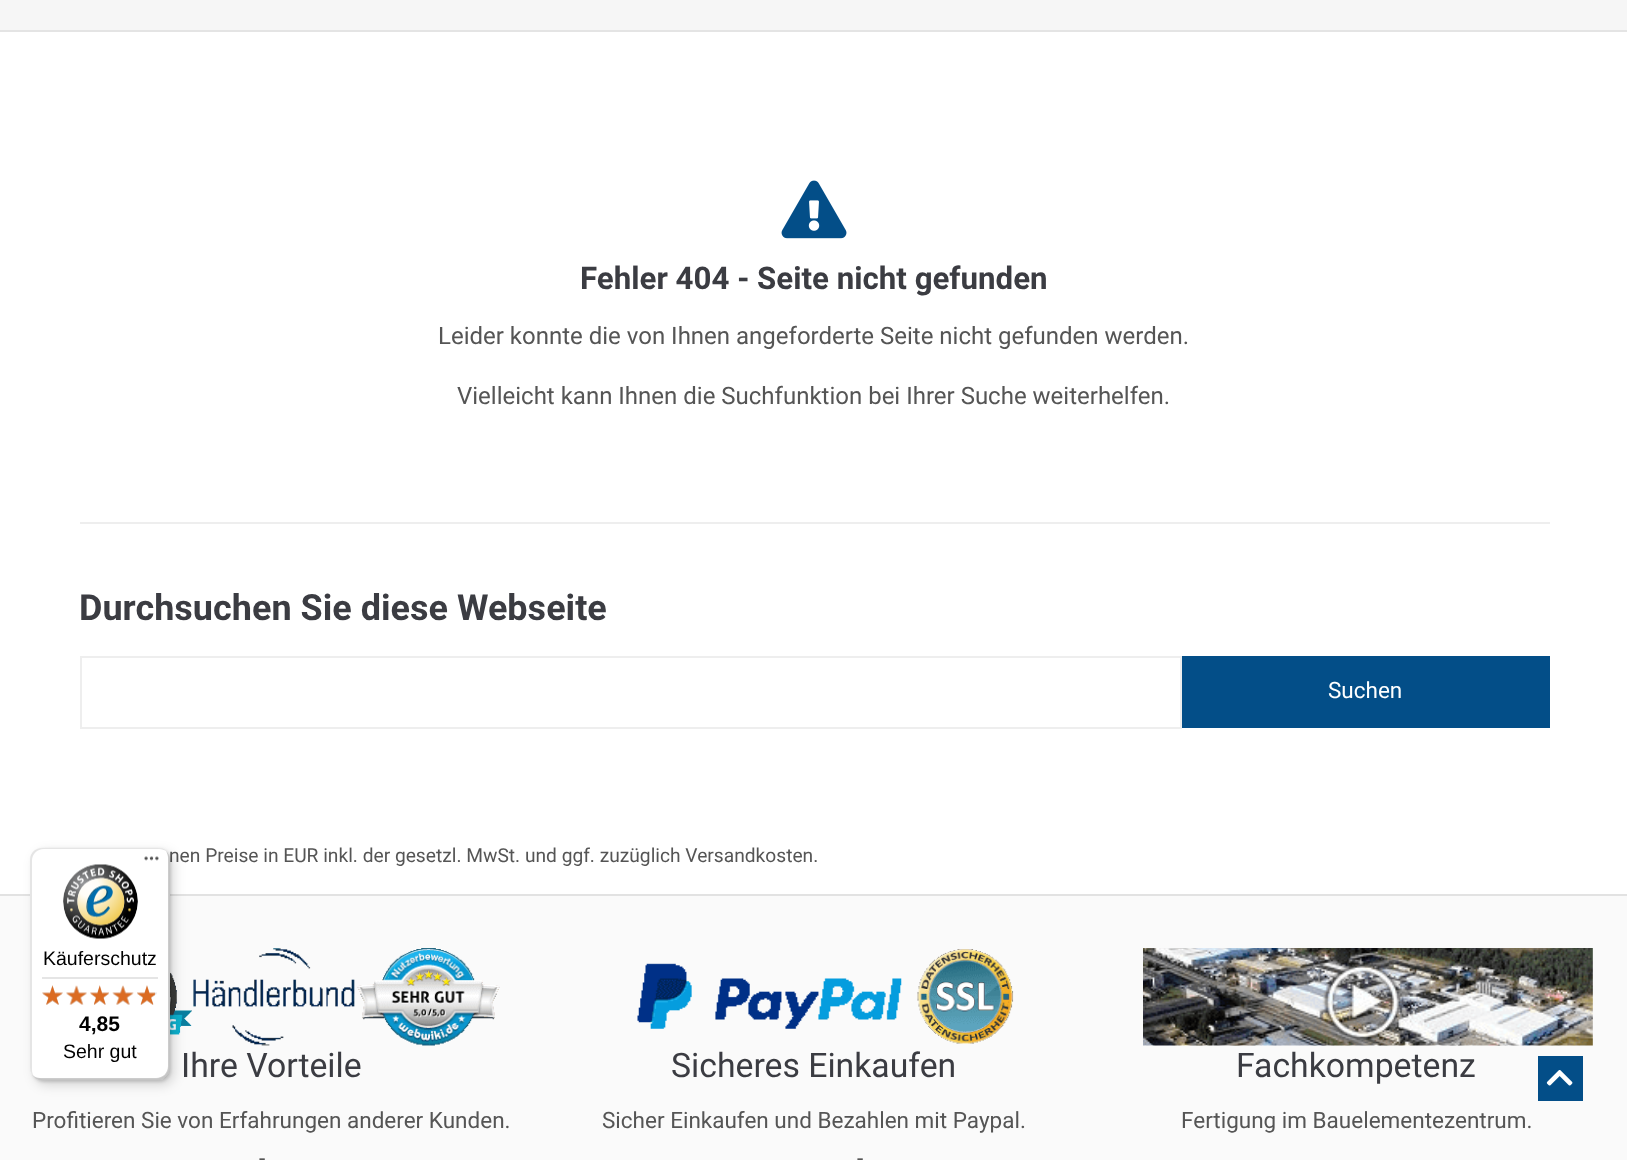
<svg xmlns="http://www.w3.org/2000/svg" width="1627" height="1160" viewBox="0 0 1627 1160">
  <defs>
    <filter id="blur1" x="-50%" y="-200%" width="200%" height="500%"><feGaussianBlur stdDeviation="6"/></filter>
    <filter id="blur2" x="-50%" y="-200%" width="200%" height="500%"><feGaussianBlur stdDeviation="1.5"/></filter>
  </defs>
  <rect width="100%" height="100%" fill="#ffffff"/>
  <rect x="0" y="0" width="1627" height="30" fill="#f6f6f6"/>
  <rect x="0" y="30" width="1627" height="2" fill="#e4e4e4"/>
  <image x="781" y="180" width="66" height="59" href="img1.png"/>
  <text x="580" y="289" font-family="Roboto" font-size="31.25" font-weight="bold" fill="#3b3c42">Fehler 404 - Seite nicht gefunden</text>
  <text x="438" y="344" font-family="Roboto" font-size="24" fill="#555555">Leider konnte die von Ihnen angeforderte Seite nicht gefunden werden.</text>
  <text x="457" y="404" font-family="Roboto" font-size="24" fill="#555555">Vielleicht kann Ihnen die Suchfunktion bei Ihrer Suche weiterhelfen.</text>
  <rect x="80" y="522" width="1470" height="2" fill="#eeeeee"/>
  <text x="79" y="620" font-family="Roboto" font-size="36" font-weight="bold" fill="#3b3c42">Durchsuchen Sie diese Webseite</text>
  <rect x="81" y="657" width="1100" height="71" fill="none" stroke="#eeeeee" stroke-width="2"/>
  <rect x="1182" y="656" width="368" height="72" fill="#034e88"/>
  <text x="1328" y="698" font-family="Roboto" font-size="22.5" fill="#ffffff">Suchen</text>
  <text x="169" y="862" font-family="Roboto" font-size="19.2" fill="#555555">nen Preise in EUR inkl. der gesetzl. MwSt. und ggf. zuzüglich Versandkosten.</text>
  <rect x="0" y="896" width="1627" height="264" fill="#fafafa"/>
  <rect x="0" y="894" width="1627" height="2" fill="#e2e2e2"/>
  <image x="170" y="972" width="22" height="63" href="img2.png"/>
  <image x="193" y="948" width="162" height="98" href="img3.png"/>
  <image x="357" y="948" width="143" height="98" href="img4.png"/>
  <text x="181" y="1077" font-family="Roboto" font-size="33.75" fill="#3b3c42">Ihre Vorteile</text>
  <text x="32" y="1128" font-family="Roboto" font-size="22.5" fill="#555555">Profitieren Sie von Erfahrungen anderer Kunden.</text>
  <text x="259" y="1166" font-family="Roboto" font-size="22.5" fill="#555555">-</text>
  <image x="637" y="963" width="265" height="66" href="img5.png"/>
  <image x="917" y="949" width="97" height="95" href="img6.png"/>
  <text x="671" y="1077" font-family="Roboto" font-size="33.75" fill="#3b3c42">Sicheres Einkaufen</text>
  <text x="602" y="1128" font-family="Roboto" font-size="22.5" fill="#555555">Sicher Einkaufen und Bezahlen mit Paypal.</text>
  <text x="857" y="1166" font-family="Roboto" font-size="22.5" fill="#555555">-</text>
  <image x="1143" y="948" width="450" height="98" href="img7.png"/>
  <text x="1236" y="1077" font-family="Roboto" font-size="33.75" fill="#3b3c42">Fachkompetenz</text>
  <text x="1181" y="1128" font-family="Roboto" font-size="22.5" fill="#555555">Fertigung im Bauelementezentrum.</text>
  <rect x="1538" y="1056" width="45" height="45" fill="#034e88"/>
  <image x="1546" y="1070" width="27" height="16" href="img8.png"/>
  <rect x="35" y="852" width="139" height="233" rx="12" fill="#000000" fill-opacity="0.15" filter="url(#blur1)"/>
  <rect x="32" y="849" width="139" height="233" rx="12" fill="#000000" fill-opacity="0.15" filter="url(#blur2)"/>
  <rect x="30" y="848" width="140" height="232" rx="12" fill="#ffffff"/>
  <path d="M44 849H159C162 849 164 850 166 851C164 849 161 848 158 848H42C35 848 30 853 30 860V1068C30 1072 32 1075 35 1078C33 1075 32 1073 32 1070V861C32 854 37 849 44 849Z" fill="#000000" fill-opacity="0.1"/>
  <path d="M32 1075C35 1078 38 1080 42 1080H158C165 1080 170 1075 170 1068V860C170 856 168 853 166 851C167 853 168 855 168 858V1066C168 1073 163 1078 156 1078H40C37 1078 35 1077 32 1075Z" fill="#000000" fill-opacity="0.2"/>
  <path d="M34 1077C36 1079 39 1080 42 1080H158C165 1080 170 1075 170 1068V860C170 856 168 853 166 851C168 853 169 856 169 859V1067C169 1074 163 1079 157 1079H41C38 1079 36 1078 34 1077Z" fill="#323232" fill-opacity="0.2"/>
  <path d="M33 1076C35 1078 38 1080 42 1080H158C165 1080 170 1075 170 1068V860C170 856 168 853 166 851C168 853 169 856 169 859V1067C169 1074 163 1079 157 1079H41C38 1079 35 1078 33 1076Z" fill="#ffffff" fill-opacity="0.3"/>
  <image x="144" y="856" width="15" height="5" href="img9.png"/>
  <image x="63" y="864" width="75" height="75" href="img10.png"/>
  <text x="43" y="965" font-family="Liberation Sans" font-size="19.5" fill="#000000">Käuferschutz</text>
  <rect x="42" y="977" width="116" height="2" fill="#e5e5e5"/>
  <image x="42" y="985" width="21" height="20" href="img11.png"/>
  <image x="66" y="986" width="21" height="19" href="img12.png"/>
  <image x="90" y="985" width="19" height="20" href="img13.png"/>
  <image x="113" y="986" width="20" height="19" href="img14.png"/>
  <image x="137" y="985" width="20" height="20" href="img15.png"/>
  <image x="42" y="985" width="21" height="20" href="img16.png"/>
  <image x="66" y="985" width="21" height="20" href="img17.png"/>
  <image x="90" y="985" width="19" height="20" href="img18.png"/>
  <image x="112" y="985" width="22" height="20" href="img19.png"/>
  <image x="137" y="985" width="18" height="20" href="img20.png"/>
  <text x="79" y="1031" font-family="Liberation Sans" font-size="21" font-weight="bold" fill="#000000">4,85</text>
  <text x="63" y="1058" font-family="Liberation Sans" font-size="19.5" fill="#000000">Sehr gut</text>
</svg>
